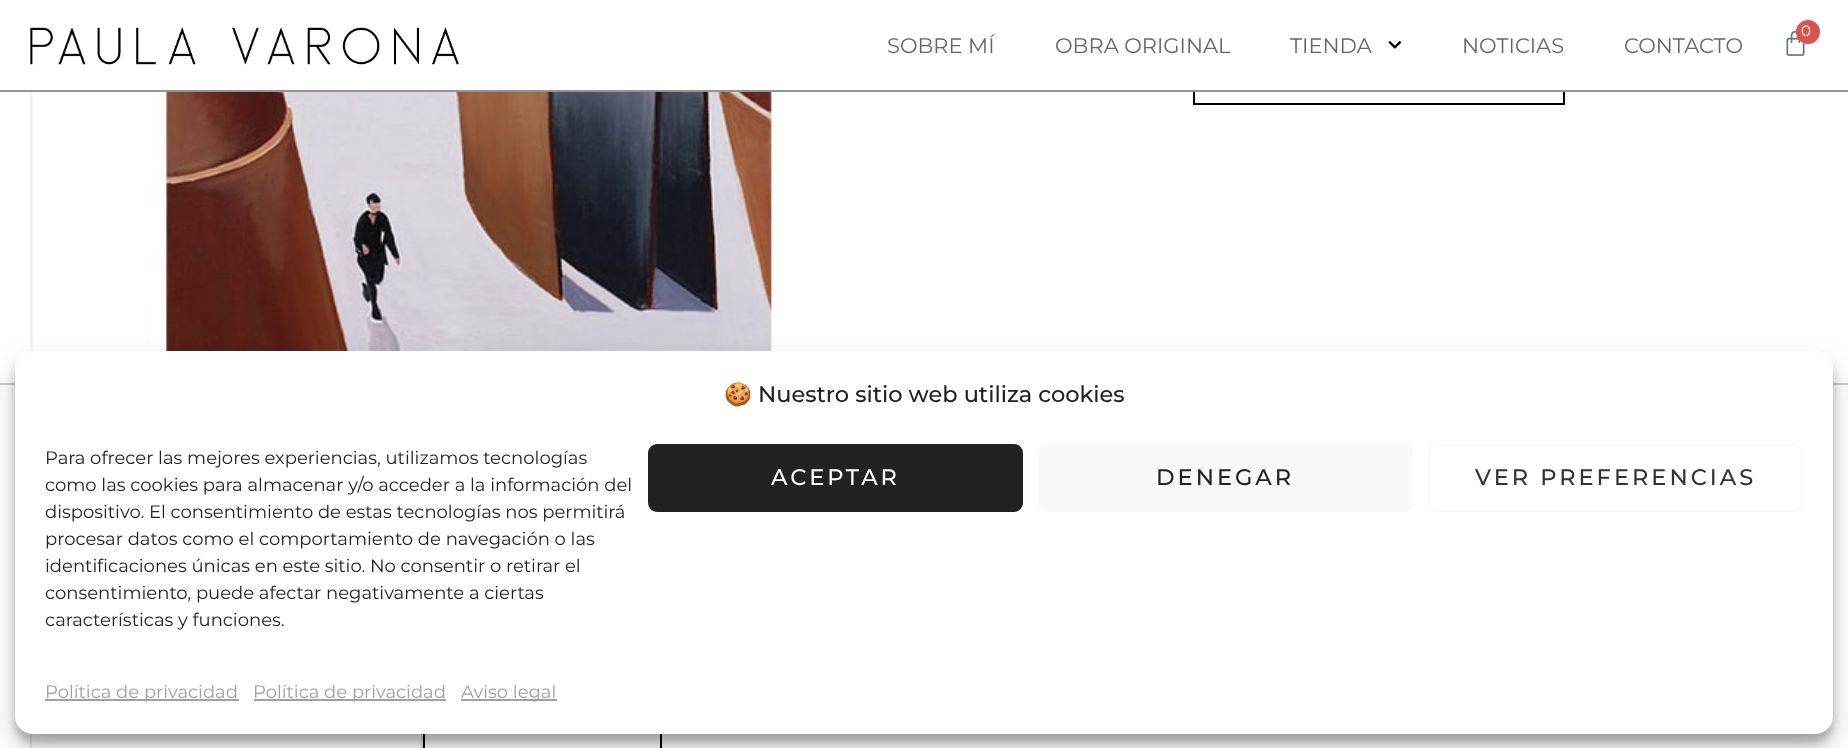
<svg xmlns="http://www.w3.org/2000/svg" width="1848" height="748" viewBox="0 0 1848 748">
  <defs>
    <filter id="blur1" x="-50%" y="-200%" width="200%" height="500%"><feGaussianBlur stdDeviation="4.5"/></filter>
    <filter id="blur2" x="-50%" y="-200%" width="200%" height="500%"><feGaussianBlur stdDeviation="15"/></filter>
  </defs>
  <rect width="100%" height="100%" fill="#ffffff"/>
  <rect x="1194" y="31" width="370" height="73" fill="none" stroke="#000000" stroke-width="2"/>
  <rect x="1193" y="30" width="372" height="60" fill="#ffffff"/>
  <rect x="0" y="90" width="1848" height="2" fill="#949494"/>
  <image x="30" y="27" width="429" height="38" href="img1.png"/>
  <image x="1786" y="30" width="19" height="26" href="img2.png"/>
  <circle cx="1808" cy="32" r="12" fill="#d9534f"/>
  <text x="1801" y="36" font-family="Montserrat" font-size="15" letter-spacing="3" fill="#ffffff">0</text>
  <text x="887" y="53" font-family="Montserrat" font-size="21" fill="#666666">SOBRE MÍ</text>
  <text x="1055" y="53" font-family="Montserrat" font-size="21" fill="#666666">OBRA ORIGINAL</text>
  <text x="1290" y="53" font-family="Montserrat" font-size="21" fill="#666666">TIENDA</text>
  <image x="1388" y="41" width="14" height="8" href="img3.png"/>
  <text x="1462" y="53" font-family="Montserrat" font-size="21" fill="#666666">NOTICIAS</text>
  <text x="1624" y="53" font-family="Montserrat" font-size="21" fill="#666666">CONTACTO</text>
  <image x="30" y="92" width="750" height="260" href="img4.png"/>
  <rect x="0" y="383" width="1848" height="2" fill="#cccccc"/>
  <rect x="31" y="717" width="391" height="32" fill="none" stroke="#e6e6e6" stroke-width="2"/>
  <rect x="424" y="717" width="237" height="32" fill="none" stroke="#000000" stroke-width="2"/>
  <rect x="15" y="360" width="1818" height="383" rx="18" fill="#000000" fill-opacity="0.23" filter="url(#blur1)"/>
  <rect x="15" y="366" width="1818" height="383" rx="18" fill="#000000" fill-opacity="0.19" filter="url(#blur2)"/>
  <rect x="15" y="351" width="1818" height="383" rx="18" fill="#ffffff"/>
  <text x="724" y="402" font-family="Noto Color Emoji" font-size="22.5" fill="#222222">🍪</text>
  <text x="758" y="402" font-family="Montserrat" font-size="22.5" font-weight="500" fill="#222222">Nuestro sitio web utiliza cookies</text>
  <text x="45" y="464" font-family="Montserrat" font-size="18" fill="#222222">Para ofrecer las mejores experiencias, utilizamos tecnologías</text>
  <text x="45" y="491" font-family="Montserrat" font-size="18" fill="#222222">como las cookies para almacenar y/o acceder a la información del</text>
  <text x="45" y="518" font-family="Montserrat" font-size="18" fill="#222222">dispositivo. El consentimiento de estas tecnologías nos permitirá</text>
  <text x="45" y="545" font-family="Montserrat" font-size="18" fill="#222222">procesar datos como el comportamiento de navegación o las</text>
  <text x="45" y="572" font-family="Montserrat" font-size="18" fill="#222222">identificaciones únicas en este sitio. No consentir o retirar el</text>
  <text x="45" y="599" font-family="Montserrat" font-size="18" fill="#222222">consentimiento, puede afectar negativamente a ciertas</text>
  <text x="45" y="626" font-family="Montserrat" font-size="18" fill="#222222">características y funciones.</text>
  <rect x="649" y="445" width="373" height="66" rx="8" fill="#222222" stroke="#222222" stroke-width="2"/>
  <text x="771" y="485" font-family="Montserrat" font-size="22.5" font-weight="500" letter-spacing="3" fill="#ffffff">ACEPTAR</text>
  <rect x="1038" y="444" width="375" height="68" rx="9" fill="#f9f9f9"/>
  <text x="1156" y="485" font-family="Montserrat" font-size="22.5" font-weight="500" letter-spacing="3" fill="#222222">DENEGAR</text>
  <rect x="1429" y="445" width="373" height="66" rx="8" fill="none" stroke="#f9f9f9" stroke-width="2"/>
  <text x="1475" y="485" font-family="Montserrat" font-size="22.5" font-weight="500" letter-spacing="3" fill="#333333">VER PREFERENCIAS</text>
  <rect x="45" y="699" width="194" height="2" fill="#a0a0a0"/>
  <text x="45" y="698" font-family="Montserrat" font-size="18" fill="#a0a0a0">Política de privacidad</text>
  <rect x="254" y="699" width="192" height="2" fill="#a0a0a0"/>
  <text x="253" y="698" font-family="Montserrat" font-size="18" fill="#a0a0a0">Política de privacidad</text>
  <rect x="461" y="699" width="96" height="2" fill="#a0a0a0"/>
  <text x="461" y="698" font-family="Montserrat" font-size="18" fill="#a0a0a0">Aviso legal</text>
</svg>
